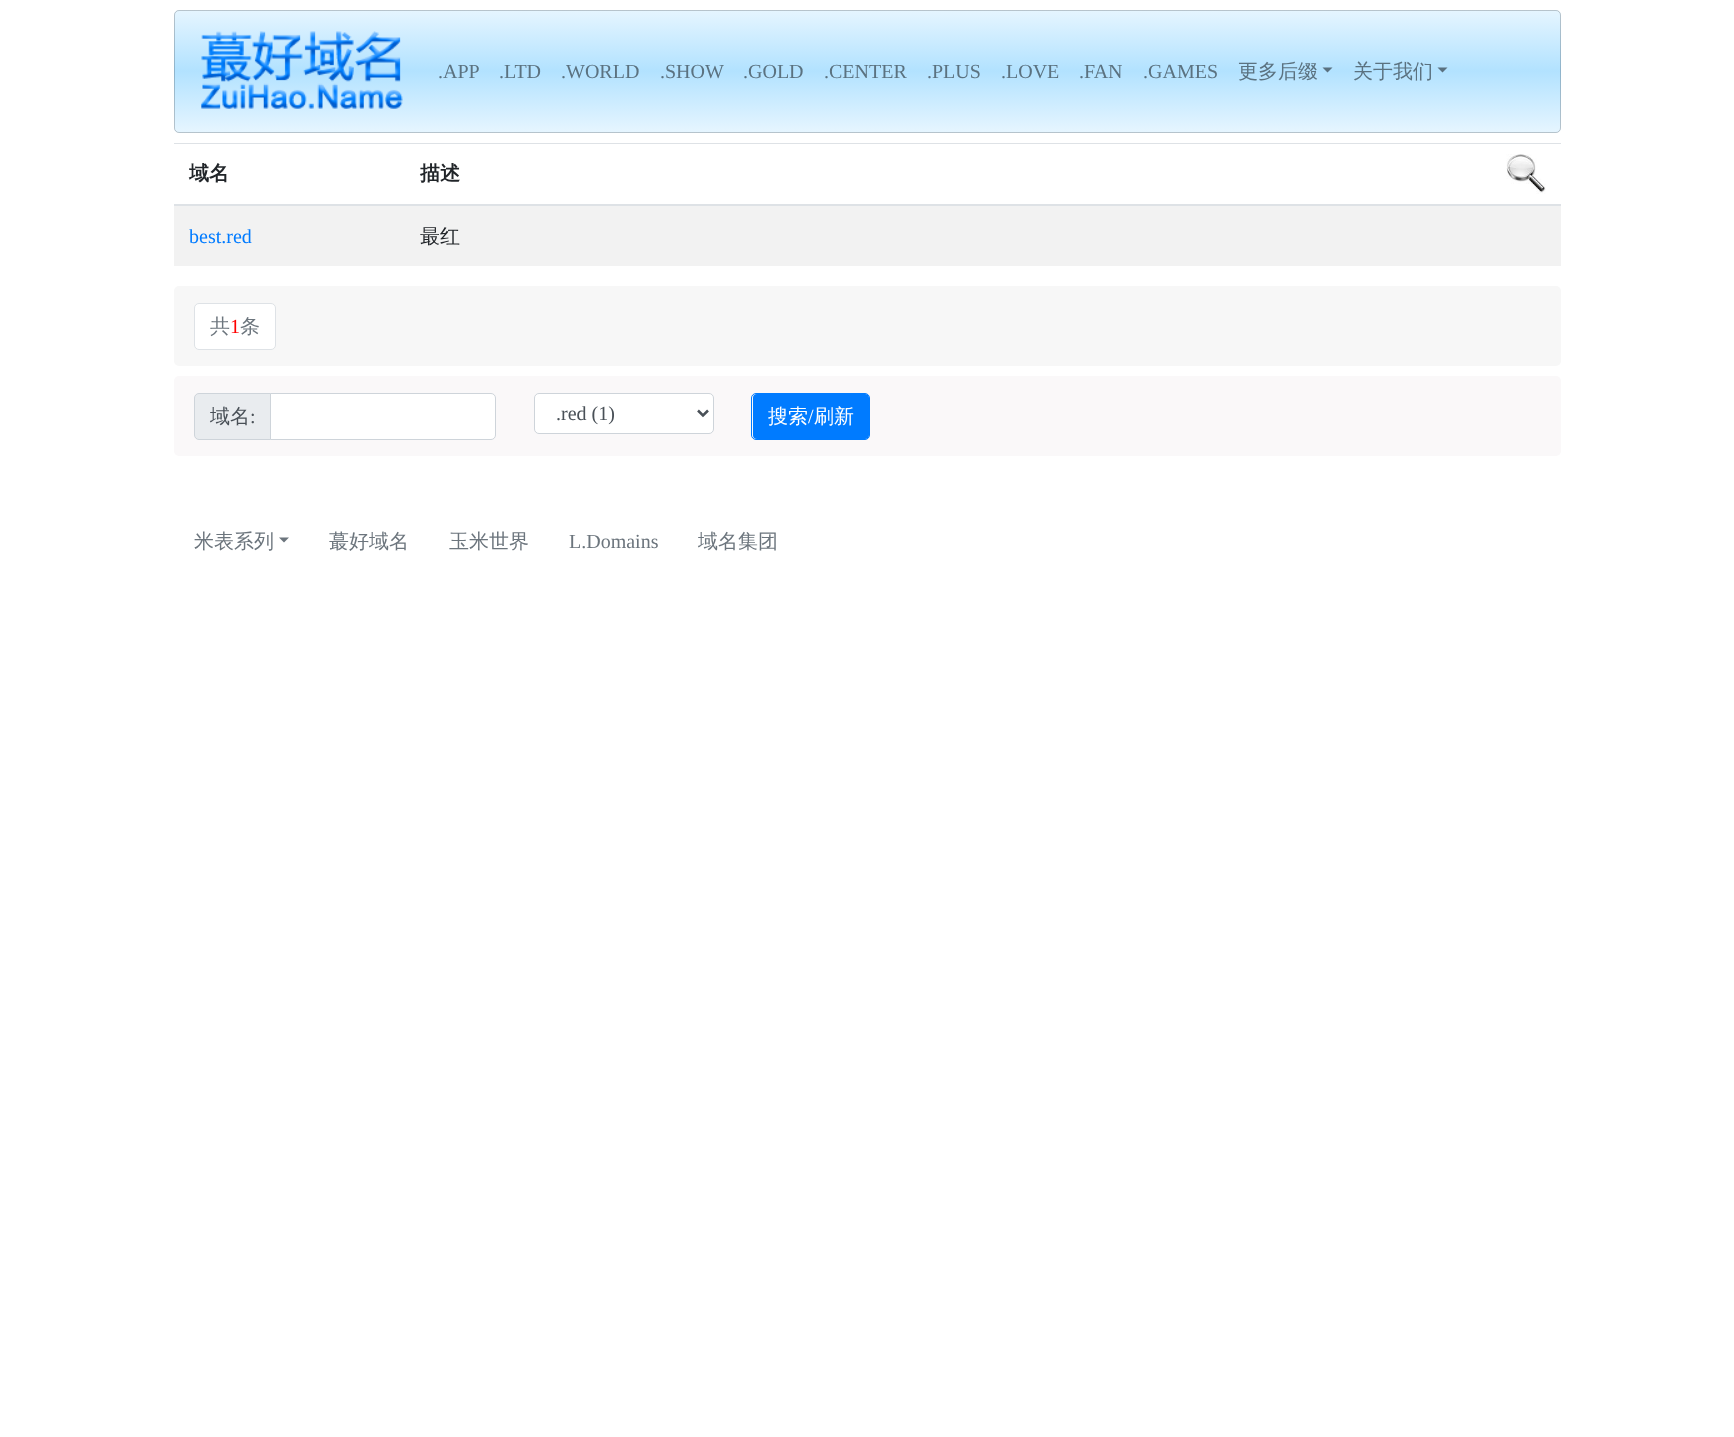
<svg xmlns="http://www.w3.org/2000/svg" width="1734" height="1437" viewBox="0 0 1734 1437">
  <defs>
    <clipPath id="clip1"><rect x="174" y="10" width="1387" height="123" rx="5"/></clipPath>
    <linearGradient id="g1" gradientUnits="userSpaceOnUse" x1="868" y1="-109" x2="868" y2="11"><stop offset="0" stop-color="#e5f5ff"/><stop offset="0.5" stop-color="#b2e2ff"/><stop offset="1" stop-color="#e5f5ff"/></linearGradient>
    <linearGradient id="g2" gradientUnits="userSpaceOnUse" x1="868" y1="11" x2="868" y2="131"><stop offset="0" stop-color="#e5f5ff"/><stop offset="0.5" stop-color="#b2e2ff"/><stop offset="1" stop-color="#e5f5ff"/></linearGradient>
    <linearGradient id="g3" gradientUnits="userSpaceOnUse" x1="868" y1="131" x2="868" y2="251"><stop offset="0" stop-color="#e5f5ff"/><stop offset="0.5" stop-color="#b2e2ff"/><stop offset="1" stop-color="#e5f5ff"/></linearGradient>
  </defs>
  <rect width="100%" height="100%" fill="#ffffff"/>
  <g clip-path="url(#clip1)">
    <rect x="174" y="10" width="1387" height="1" fill="url(#g1)"/>
    <rect x="174" y="11" width="1387" height="120" fill="url(#g2)"/>
    <rect x="174" y="131" width="1387" height="2" fill="url(#g3)"/>
  </g>
  <rect x="174.5" y="10.5" width="1386" height="122" rx="4.5" fill="none" stroke="#000000" stroke-opacity="0.2"/>
  <image x="201" y="31" width="202" height="78" href="img1.png"/>
  <text x="438" y="78" font-family="Liberation Serif" font-size="20" fill="#5b7280">.APP</text>
  <text x="499" y="78" font-family="Liberation Serif" font-size="20" fill="#5b7280">.LTD</text>
  <text x="561" y="78" font-family="Liberation Serif" font-size="20" fill="#5b7280">.WORLD</text>
  <text x="660" y="78" font-family="Liberation Serif" font-size="20" fill="#5b7280">.SHOW</text>
  <text x="743" y="78" font-family="Liberation Serif" font-size="20" fill="#5b7280">.GOLD</text>
  <text x="824" y="78" font-family="Liberation Serif" font-size="20" fill="#5b7280">.CENTER</text>
  <text x="927" y="78" font-family="Liberation Serif" font-size="20" fill="#5b7280">.PLUS</text>
  <text x="1001" y="78" font-family="Liberation Serif" font-size="20" fill="#5b7280">.LOVE</text>
  <text x="1079" y="78" font-family="Liberation Serif" font-size="20" fill="#5b7280">.FAN</text>
  <text x="1143" y="78" font-family="Liberation Serif" font-size="20" fill="#5b7280">.GAMES</text>
  <text x="1238" y="78" font-family="WenQuanYi Zen Hei" font-size="20" font-weight="500" fill="#5b7280">更多后缀</text>
  <path d="M1322.5 67.5H1332.5L1327.5 72.5Z" fill="#5a7180"/>
  <text x="1353" y="78" font-family="WenQuanYi Zen Hei" font-size="20" font-weight="500" fill="#5b7280">关于我们</text>
  <path d="M1437.5 67.5H1447.5L1442.5 72.5Z" fill="#5a7180"/>
  <rect x="174" y="143" width="1387" height="1" fill="#dee2e6"/>
  <rect x="174" y="204" width="1387" height="1" fill="#dee2e6"/>
  <text x="189" y="180" font-family="WenQuanYi Zen Hei" font-size="20" font-weight="bold" fill="#212529">域名</text>
  <image x="1506" y="154" width="40" height="40" href="img2.png"/>
  <text x="420" y="180" font-family="WenQuanYi Zen Hei" font-size="20" font-weight="bold" fill="#212529">描述</text>
  <rect x="174" y="206" width="1387" height="60" fill="#f2f2f2"/>
  <rect x="174" y="205" width="1387" height="1" fill="#dee2e6"/>
  <text x="189" y="243" font-family="Liberation Serif" font-size="20" fill="#007bff">best.red</text>
  <text x="420" y="243" font-family="WenQuanYi Zen Hei" font-size="20" font-weight="500" fill="#212529">最红</text>
  <rect x="174" y="286" width="1387" height="80" rx="5" fill="#f7f7f7"/>
  <rect x="194.5" y="303.5" width="81" height="46" rx="4.5" fill="#ffffff" stroke="#dee2e6"/>
  <text x="210" y="333" font-family="WenQuanYi Zen Hei" font-size="20" font-weight="500" fill="#6c757d">共</text>
  <text x="230" y="333" font-family="Liberation Serif" font-size="20" fill="#ff0000">1</text>
  <text x="240" y="333" font-family="WenQuanYi Zen Hei" font-size="20" font-weight="500" fill="#6c757d">条</text>
  <rect x="174" y="376" width="1387" height="80" rx="5" fill="#faf8f9"/>
  <path d="M199 393.5H270.5V439.5H199C196.5 439.5 194.5 437.5 194.5 435V398C194.5 395.5 196.5 393.5 199 393.5Z" fill="#e9ecef" stroke="#ced4da"/>
  <text x="210" y="423" font-family="WenQuanYi Zen Hei" font-size="20" font-weight="500" fill="#495057">域名</text>
  <text x="250" y="423" font-family="Liberation Serif" font-size="20" fill="#495057">:</text>
  <path d="M270.5 393.5H491C493.5 393.5 495.5 395.5 495.5 398V435C495.5 437.5 493.5 439.5 491 439.5H270.5Z" fill="#ffffff" stroke="#ced4da"/>
  <rect x="534.5" y="393.5" width="179" height="40" rx="4.5" fill="#ffffff" stroke="#ced4da"/>
  <path d="M698 410.5L703 415.5L708 410.5" fill="none" stroke="#495057" stroke-width="2.5"/>
  <text x="556" y="420" font-family="Liberation Serif" font-size="20" fill="#495057">.red (1)</text>
  <rect x="753" y="394" width="116" height="45" rx="4" fill="#007bff"/>
  <rect x="751.5" y="393.5" width="118" height="46" rx="4.5" fill="none" stroke="#007bff"/>
  <text x="768" y="423" font-family="WenQuanYi Zen Hei" font-size="20" font-weight="500" fill="#ffffff">搜索</text>
  <text x="808" y="423" font-family="Liberation Serif" font-size="20" fill="#ffffff">/</text>
  <text x="814" y="423" font-family="WenQuanYi Zen Hei" font-size="20" font-weight="500" fill="#ffffff">刷新</text>
  <text x="194" y="548" font-family="WenQuanYi Zen Hei" font-size="20" font-weight="500" fill="#6c757d">米表系列</text>
  <path d="M279 537.5H289L284 542.5Z" fill="#6c757d"/>
  <text x="329" y="548" font-family="WenQuanYi Zen Hei" font-size="20" font-weight="500" fill="#6c757d">蕞好域名</text>
  <text x="449" y="548" font-family="WenQuanYi Zen Hei" font-size="20" font-weight="500" fill="#6c757d">玉米世界</text>
  <text x="569" y="548" font-family="Liberation Serif" font-size="20" fill="#6c757d">L.Domains</text>
  <text x="698" y="548" font-family="WenQuanYi Zen Hei" font-size="20" font-weight="500" fill="#6c757d">域名集团</text>
</svg>
